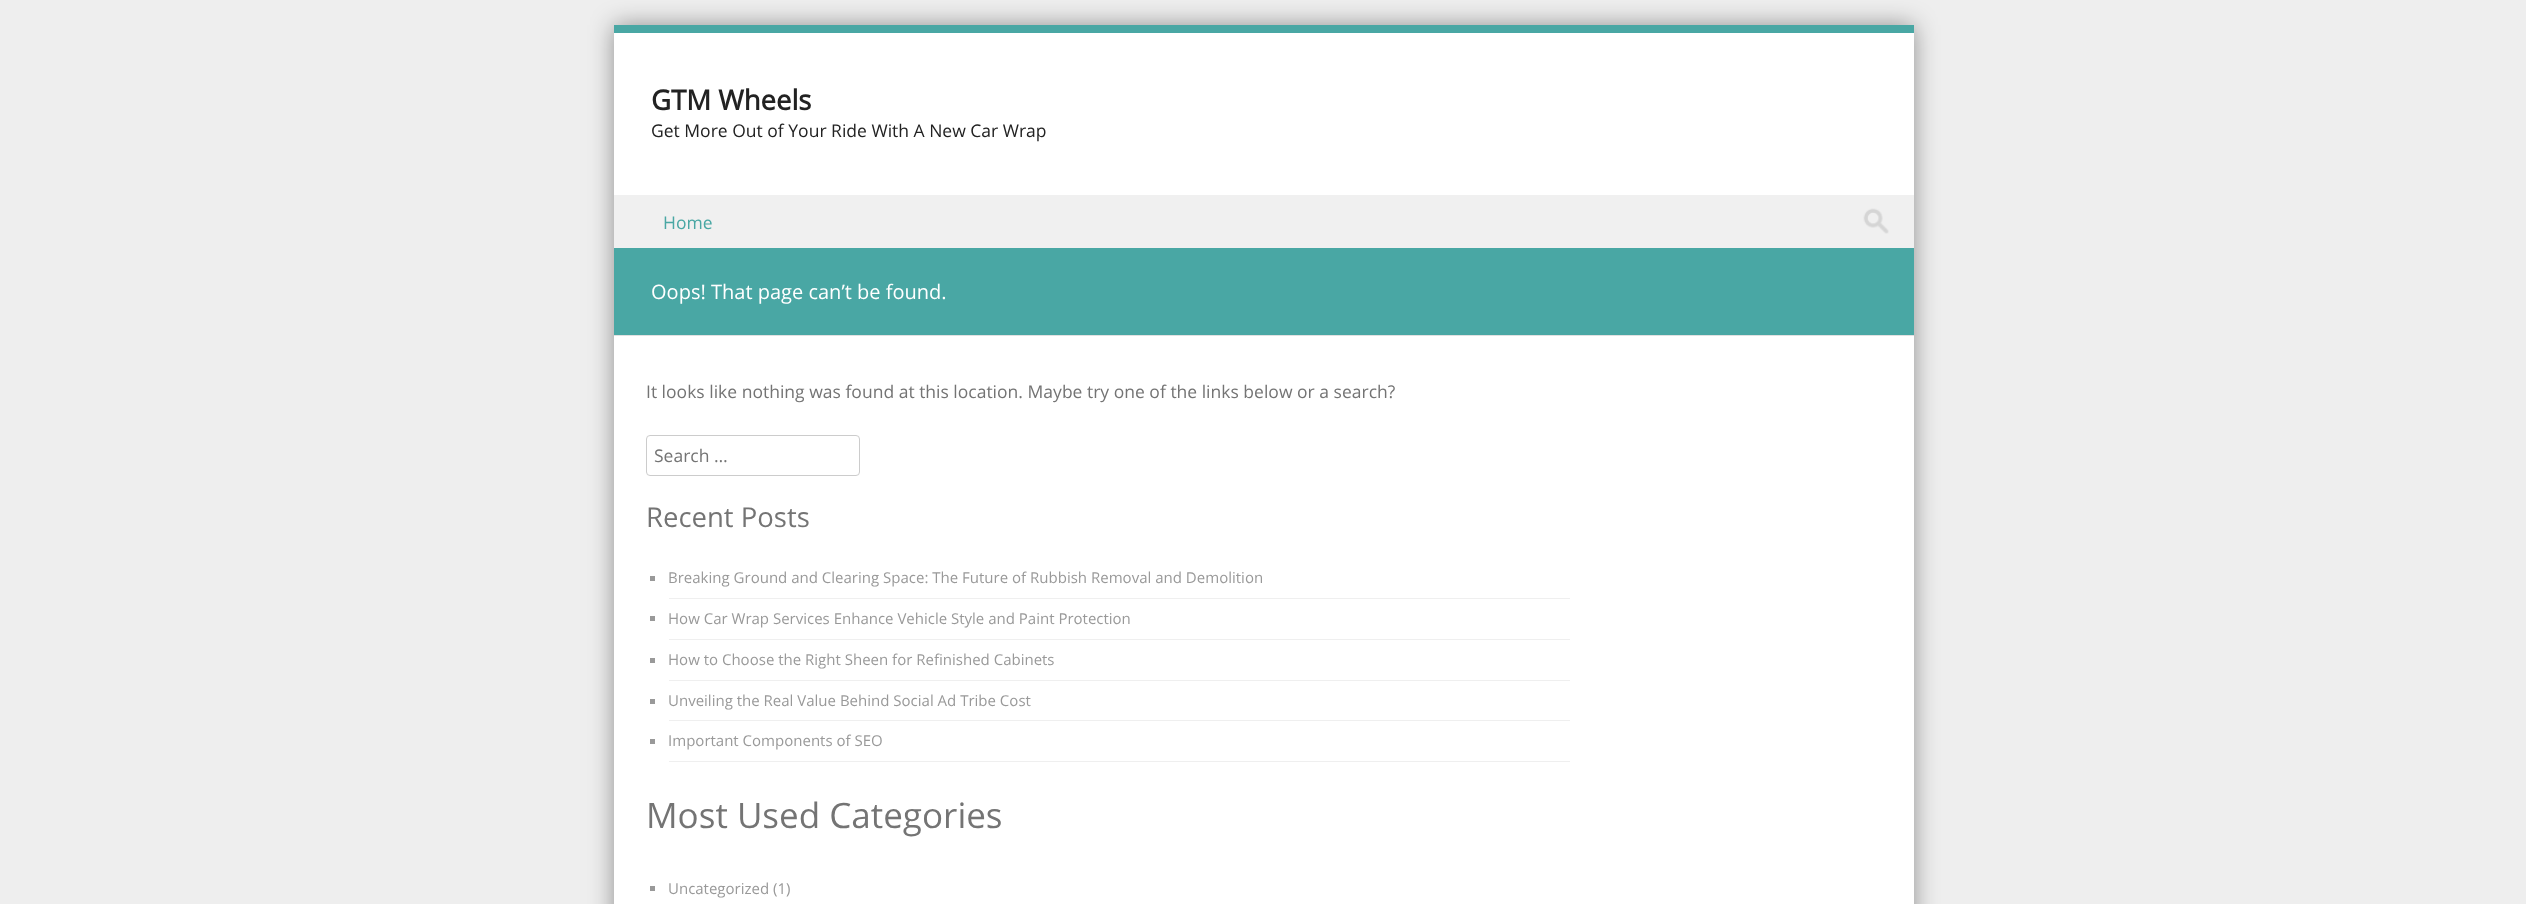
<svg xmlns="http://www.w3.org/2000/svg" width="2526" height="904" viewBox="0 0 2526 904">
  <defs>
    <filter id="blur1" x="-50%" y="-200%" width="200%" height="500%"><feGaussianBlur stdDeviation="12.5"/></filter>
  </defs>
  <rect width="100%" height="100%" fill="#eeeeee"/>
  <rect x="614" y="25" width="1300" height="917" fill="#000000" fill-opacity="0.4" filter="url(#blur1)"/>
  <rect x="614" y="33" width="1300" height="871" fill="#ffffff"/>
  <rect x="614" y="25" width="1300" height="8" fill="#49a7a4"/>
  <text x="651" y="110" font-family="Open Sans" font-size="27.5" font-weight="bold" fill="#222222">GTM Wheels</text>
  <text x="651" y="137" font-family="Open Sans" font-size="17.5" fill="#222222">Get More Out of Your Ride With A New Car Wrap</text>
  <rect x="614" y="195" width="1300" height="53" fill="#f0f0f0"/>
  <text x="663" y="229" font-family="Open Sans" font-size="17.5" fill="#49a7a4">Home</text>
  <image x="1863" y="208" width="26" height="26" href="img1.png"/>
  <rect x="614" y="248" width="1300" height="87" fill="#49a7a4"/>
  <rect x="614" y="335" width="1300" height="1" fill="#e1e1e1"/>
  <text x="651" y="299" font-family="Open Sans" font-size="20" fill="#ffffff">Oops! That page can’t be found.</text>
  <text x="646" y="398" font-family="Open Sans" font-size="17.5" fill="#747474">It looks like nothing was found at this location. Maybe try one of the links below or a search?</text>
  <rect x="646.5" y="435.5" width="213" height="40" rx="3.5" fill="none" stroke="#cccccc"/>
  <text x="654" y="462" font-family="Open Sans" font-size="17.5" fill="#747474">Search …</text>
  <text x="646" y="527" font-family="Open Sans" font-size="27.5" fill="#747474">Recent Posts</text>
  <rect x="669" y="598" width="901" height="1" fill="#efefef"/>
  <rect x="650" y="576" width="5" height="5" fill="#999999"/>
  <text x="668" y="583" font-family="Open Sans" font-size="15" fill="#999999">Breaking Ground and Clearing Space: The Future of Rubbish Removal and Demolition</text>
  <rect x="669" y="639" width="901" height="1" fill="#efefef"/>
  <rect x="650" y="616" width="5" height="5" fill="#999999"/>
  <text x="668" y="624" font-family="Open Sans" font-size="15" fill="#999999">How Car Wrap Services Enhance Vehicle Style and Paint Protection</text>
  <rect x="669" y="680" width="901" height="1" fill="#efefef"/>
  <rect x="650" y="658" width="5" height="5" fill="#999999"/>
  <text x="668" y="665" font-family="Open Sans" font-size="15" fill="#999999">How to Choose the Right Sheen for Refinished Cabinets</text>
  <rect x="669" y="720" width="901" height="1" fill="#efefef"/>
  <rect x="650" y="699" width="5" height="5" fill="#999999"/>
  <text x="668" y="706" font-family="Open Sans" font-size="15" fill="#999999">Unveiling the Real Value Behind Social Ad Tribe Cost</text>
  <rect x="669" y="761" width="901" height="1" fill="#efefef"/>
  <rect x="650" y="739" width="5" height="5" fill="#999999"/>
  <text x="668" y="746" font-family="Open Sans" font-size="15" fill="#999999">Important Components of SEO</text>
  <text x="646" y="828" font-family="Open Sans" font-size="35" fill="#747474">Most Used Categories</text>
  <rect x="650" y="886" width="5" height="5" fill="#999999"/>
  <text x="668" y="894" font-family="Open Sans" font-size="15" fill="#999999">Uncategorized (1)</text>
</svg>
